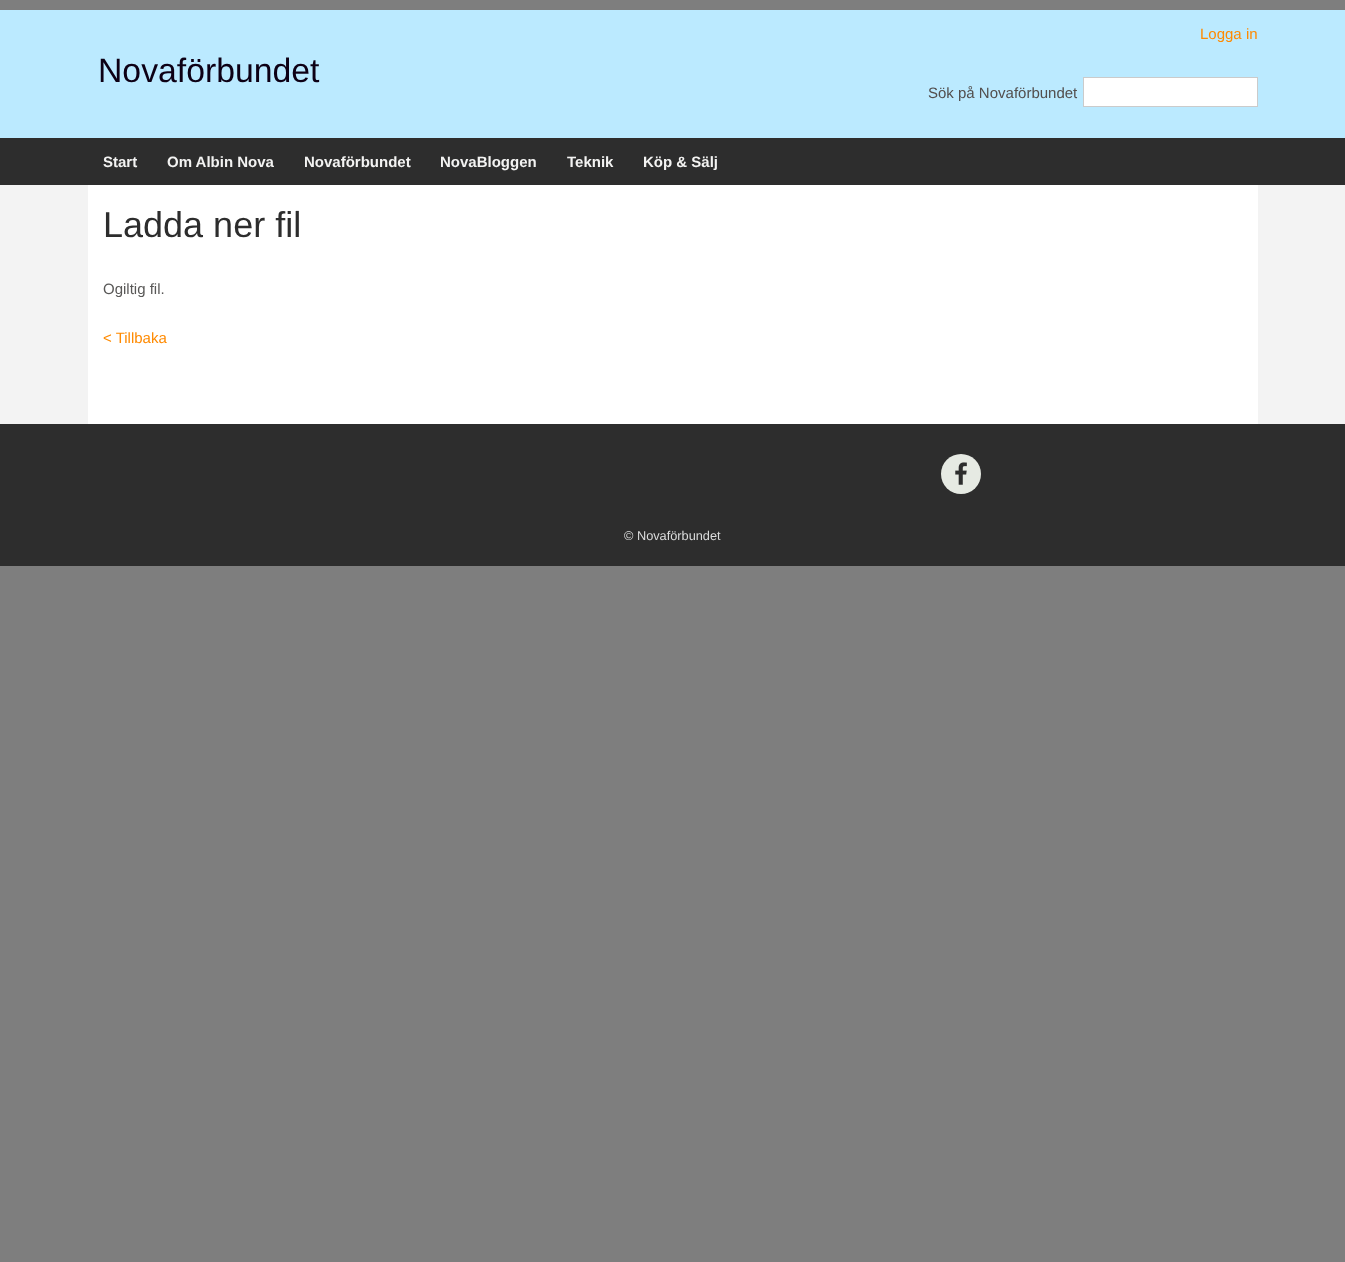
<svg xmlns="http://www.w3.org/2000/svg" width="1345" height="1262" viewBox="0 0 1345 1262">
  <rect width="100%" height="100%" fill="#7e7e7e"/>
  <rect x="0" y="10" width="1345" height="128" fill="#bbeaff"/>
  <text x="98" y="82" font-family="Liberation Sans" font-size="33.75" fill="#0d0015">Novaförbundet</text>
  <text x="1200" y="39" font-family="Liberation Sans" font-size="15" fill="#ff8a00">Logga in</text>
  <text x="928" y="98" font-family="Liberation Sans" font-size="15" fill="#524e4d">Sök på Novaförbundet</text>
  <rect x="1083.5" y="77.5" width="174" height="29" fill="#ffffff" stroke="#cbcbcb"/>
  <rect x="0" y="138" width="1345" height="47" fill="#2d2d2d"/>
  <text x="103" y="167" font-family="Liberation Sans" font-size="15" font-weight="bold" fill="#f3f3f2">Start</text>
  <text x="167" y="167" font-family="Liberation Sans" font-size="15" font-weight="bold" fill="#f3f3f2">Om Albin Nova</text>
  <text x="304" y="167" font-family="Liberation Sans" font-size="15" font-weight="bold" fill="#f3f3f2">Novaförbundet</text>
  <text x="440" y="167" font-family="Liberation Sans" font-size="15" font-weight="bold" fill="#f3f3f2">NovaBloggen</text>
  <text x="567" y="167" font-family="Liberation Sans" font-size="15" font-weight="bold" fill="#f3f3f2">Teknik</text>
  <text x="643" y="167" font-family="Liberation Sans" font-size="15" font-weight="bold" fill="#f3f3f2">Köp &amp; Sälj</text>
  <rect x="0" y="185" width="1345" height="239" fill="#f3f3f3"/>
  <rect x="88" y="185" width="1170" height="239" fill="#ffffff"/>
  <text x="103" y="237" font-family="Liberation Sans" font-size="36" fill="#2d2d2d">Ladda ner fil</text>
  <text x="103" y="294" font-family="Liberation Sans" font-size="15" fill="#595857">Ogiltig fil.</text>
  <text x="103" y="343" font-family="Liberation Sans" font-size="15" fill="#ff8a00">&lt; Tillbaka</text>
  <rect x="0" y="424" width="1345" height="142" fill="#2d2d2d"/>
  <circle cx="961" cy="474" r="20" fill="#e6eae3"/>
  <image x="955" y="462" width="12" height="23" href="img1.png"/>
  <text x="624" y="540" font-family="Liberation Sans" font-size="12.75" fill="#dcdddd">© Novaförbundet</text>
</svg>
